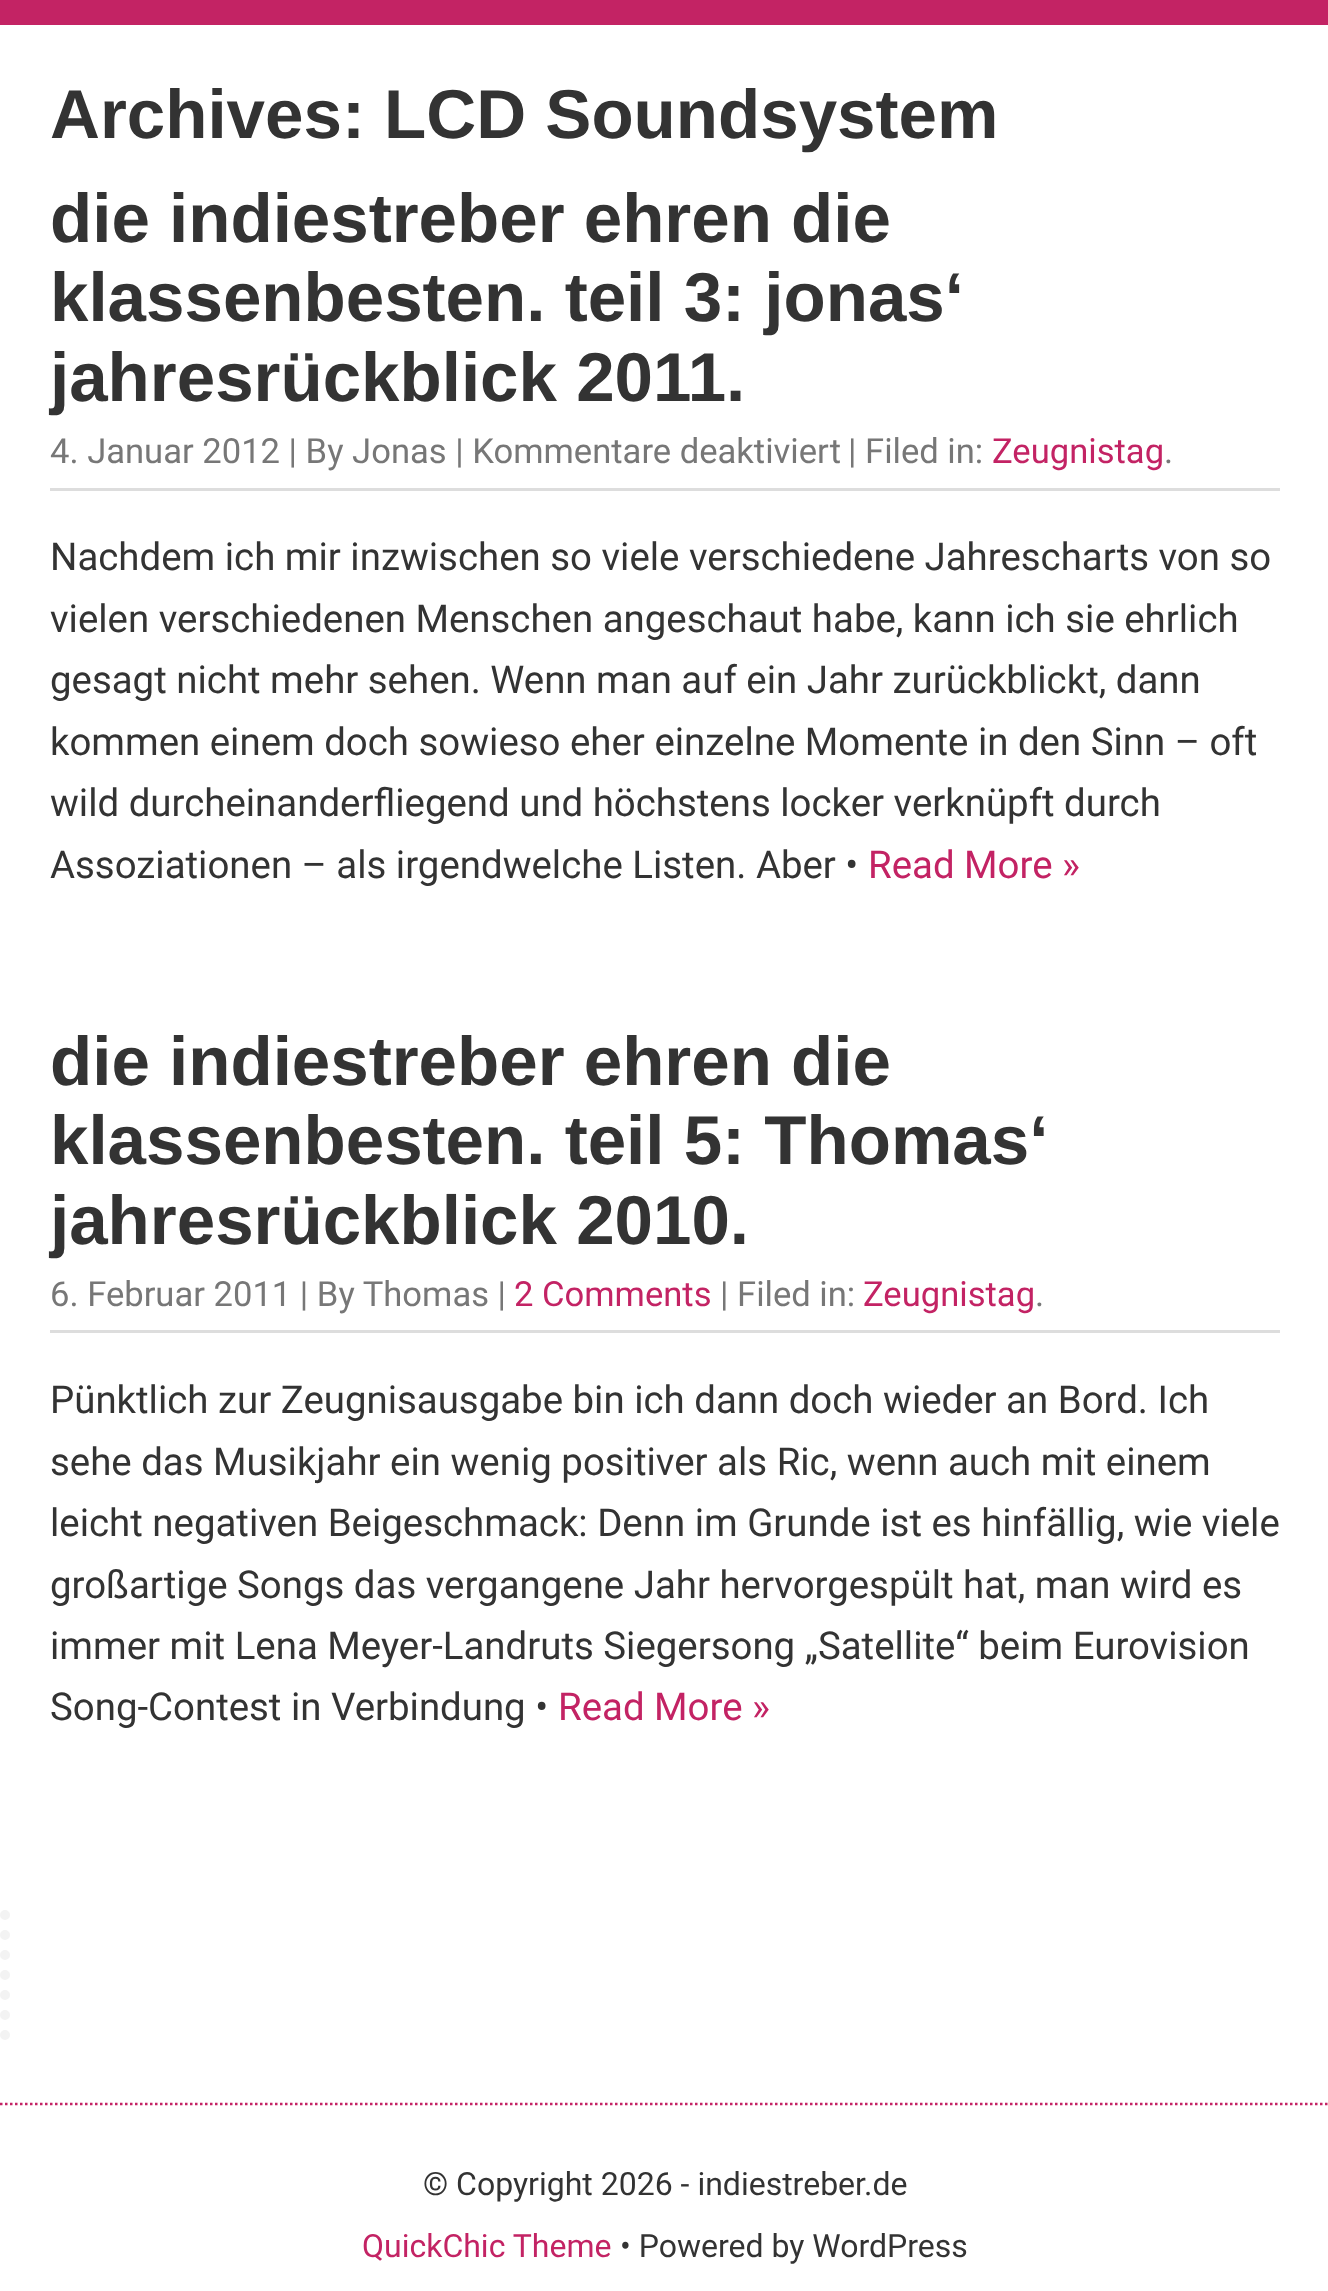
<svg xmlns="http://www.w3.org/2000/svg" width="1328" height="2291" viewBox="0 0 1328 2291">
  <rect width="100%" height="100%" fill="#ffffff"/>
  <rect x="0" y="0" width="1328" height="25" fill="#c32364"/>
  <text x="50" y="138" font-family="Liberation Sans" font-size="69.1" font-weight="bold" fill="#333333">Archives: LCD Soundsystem</text>
  <text x="50" y="242" font-family="Liberation Sans" font-size="69.1" font-weight="bold" fill="#333333">die indiestreber ehren die</text>
  <text x="50" y="321" font-family="Liberation Sans" font-size="69.1" font-weight="bold" fill="#333333">klassenbesten. teil 3: jonas‘</text>
  <text x="50" y="401" font-family="Liberation Sans" font-size="69.1" font-weight="bold" fill="#333333">jahresrückblick 2011.</text>
  <text x="50" y="463" font-family="Roboto" font-size="34.6" fill="#777777">4. Januar 2012 | By Jonas | Kommentare deaktiviert</text>
  <text x="848" y="463" font-family="Roboto" font-size="34.6" fill="#777777">| Filed in:</text>
  <text x="992" y="463" font-family="Roboto" font-size="34.6" fill="#c32364">Zeugnistag</text>
  <text x="1164" y="463" font-family="Roboto" font-size="34.6" fill="#777777">.</text>
  <rect x="50" y="488" width="1230" height="3" fill="#dddddd"/>
  <text x="50" y="570" font-family="Roboto" font-size="38.4" fill="#333333">Nachdem ich mir inzwischen so viele verschiedene Jahrescharts von so</text>
  <text x="50" y="632" font-family="Roboto" font-size="38.4" fill="#333333">vielen verschiedenen Menschen angeschaut habe, kann ich sie ehrlich</text>
  <text x="50" y="693" font-family="Roboto" font-size="38.4" fill="#333333">gesagt nicht mehr sehen. Wenn man auf ein Jahr zurückblickt, dann</text>
  <text x="50" y="755" font-family="Roboto" font-size="38.4" fill="#333333">kommen einem doch sowieso eher einzelne Momente in den Sinn – oft</text>
  <text x="50" y="816" font-family="Roboto" font-size="38.4" fill="#333333">wild durcheinanderfliegend und höchstens locker verknüpft durch</text>
  <text x="50" y="878" font-family="Roboto" font-size="38.4" fill="#333333">Assoziationen – als irgendwelche Listen. Aber •</text>
  <text x="868" y="878" font-family="Roboto" font-size="38.4" fill="#c32364">Read More »</text>
  <text x="50" y="1085" font-family="Liberation Sans" font-size="69.1" font-weight="bold" fill="#333333">die indiestreber ehren die</text>
  <text x="50" y="1164" font-family="Liberation Sans" font-size="69.1" font-weight="bold" fill="#333333">klassenbesten. teil 5: Thomas‘</text>
  <text x="50" y="1244" font-family="Liberation Sans" font-size="69.1" font-weight="bold" fill="#333333">jahresrückblick 2010.</text>
  <text x="50" y="1306" font-family="Roboto" font-size="34.6" fill="#777777">6. Februar 2011 | By Thomas |</text>
  <text x="514" y="1306" font-family="Roboto" font-size="34.6" fill="#c32364">2 Comments</text>
  <text x="720" y="1306" font-family="Roboto" font-size="34.6" fill="#777777">| Filed in:</text>
  <text x="863" y="1306" font-family="Roboto" font-size="34.6" fill="#c32364">Zeugnistag</text>
  <text x="1035" y="1306" font-family="Roboto" font-size="34.6" fill="#777777">.</text>
  <rect x="50" y="1330" width="1230" height="3" fill="#dddddd"/>
  <text x="50" y="1413" font-family="Roboto" font-size="38.4" fill="#333333">Pünktlich zur Zeugnisausgabe bin ich dann doch wieder an Bord. Ich</text>
  <text x="50" y="1475" font-family="Roboto" font-size="38.4" fill="#333333">sehe das Musikjahr ein wenig positiver als Ric, wenn auch mit einem</text>
  <text x="50" y="1536" font-family="Roboto" font-size="38.4" fill="#333333">leicht negativen Beigeschmack: Denn im Grunde ist es hinfällig, wie viele</text>
  <text x="50" y="1598" font-family="Roboto" font-size="38.4" fill="#333333">großartige Songs das vergangene Jahr hervorgespült hat, man wird es</text>
  <text x="50" y="1659" font-family="Roboto" font-size="38.4" fill="#333333">immer mit Lena Meyer-Landruts Siegersong „Satellite“ beim Eurovision</text>
  <text x="50" y="1720" font-family="Roboto" font-size="38.4" fill="#333333">Song-Contest in Verbindung •</text>
  <text x="558" y="1720" font-family="Roboto" font-size="38.4" fill="#c32364">Read More »</text>
  <path d="M5 1915V2052.5" fill="none" stroke="#f3f3f3" stroke-width="10" stroke-linecap="round" stroke-dasharray="0 20"/>
  <path d="M0 2104H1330" fill="none" stroke="#c32364" stroke-width="2.5" stroke-dasharray="2.5 2.5"/>
  <text x="423" y="2195" font-family="Roboto" font-size="32" fill="#333333">© Copyright 2026 - indiestreber.de</text>
  <text x="362" y="2257" font-family="Roboto" font-size="32" fill="#c32364">QuickChic Theme</text>
  <text x="620" y="2257" font-family="Roboto" font-size="32" fill="#333333">• Powered by WordPress</text>
</svg>
